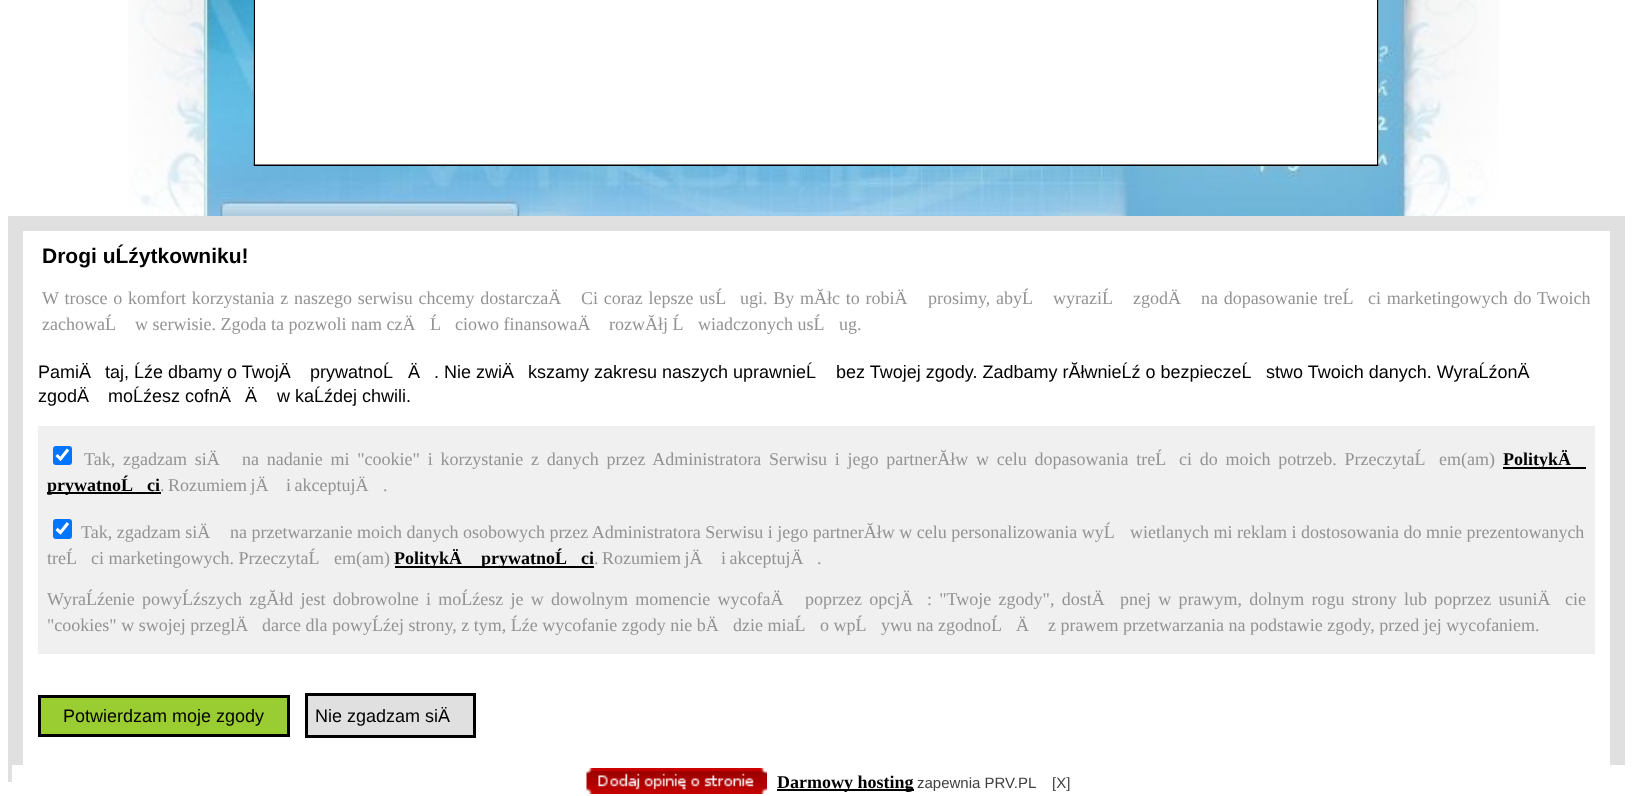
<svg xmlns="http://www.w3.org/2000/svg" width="1632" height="796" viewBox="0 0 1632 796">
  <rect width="100%" height="100%" fill="#ffffff"/>
  <image x="128" y="0" width="1371" height="216" href="img1.png"/>
  <image x="253" y="0" width="1126" height="166" href="img2.png"/>
  <rect x="15.5" y="223.5" width="1602" height="551" fill="none" stroke="#e0e0e0" stroke-width="15"/>
  <text x="42" y="263" font-family="Liberation Sans" font-size="21" font-weight="bold" fill="#000000">Drogi uĹźytkowniku!</text>
  <text x="42" y="304" word-spacing="1.25" font-family="Liberation Serif" font-size="18" fill="#939393">W trosce o komfort korzystania z naszego serwisu chcemy dostarczaÄ</text>
  <text x="581" y="304" word-spacing="1.25" font-family="Liberation Serif" font-size="18" fill="#939393">Ci coraz lepsze usĹ</text>
  <text x="740" y="304" word-spacing="1.25" font-family="Liberation Serif" font-size="18" fill="#939393">ugi. By mĂłc to robiÄ</text>
  <text x="928" y="304" word-spacing="1.25" font-family="Liberation Serif" font-size="18" fill="#939393">prosimy, abyĹ</text>
  <text x="1053" y="304" font-family="Liberation Serif" font-size="18" fill="#939393">wyraziĹ</text>
  <text x="1133" y="304" font-family="Liberation Serif" font-size="18" fill="#939393">zgodÄ</text>
  <text x="1201" y="304" word-spacing="1.25" font-family="Liberation Serif" font-size="18" fill="#939393">na dopasowanie treĹ</text>
  <text x="1368" y="304" word-spacing="1.25" font-family="Liberation Serif" font-size="18" fill="#939393">ci marketingowych do Twoich</text>
  <text x="42" y="330" font-family="Liberation Serif" font-size="18" fill="#939393">zachowaĹ</text>
  <text x="135" y="330" font-family="Liberation Serif" font-size="18" fill="#939393">w serwisie. Zgoda ta pozwoli nam czÄ</text>
  <text x="430" y="330" font-family="Liberation Serif" font-size="18" fill="#939393">Ĺ</text>
  <text x="455" y="330" font-family="Liberation Serif" font-size="18" fill="#939393">ciowo finansowaÄ</text>
  <text x="609" y="330" font-family="Liberation Serif" font-size="18" fill="#939393">rozwĂłj Ĺ</text>
  <text x="698" y="330" font-family="Liberation Serif" font-size="18" fill="#939393">wiadczonych usĹ</text>
  <text x="839" y="330" font-family="Liberation Serif" font-size="18" fill="#939393">ug.</text>
  <text x="38" y="378" font-family="Liberation Sans" font-size="18" fill="#000000">PamiÄ</text>
  <text x="105" y="378" font-family="Liberation Sans" font-size="18" fill="#000000">taj, Ĺźe dbamy o TwojÄ</text>
  <text x="310" y="378" font-family="Liberation Sans" font-size="18" fill="#000000">prywatnoĹ</text>
  <text x="408" y="378" font-family="Liberation Sans" font-size="18" fill="#000000">Ä</text>
  <text x="434" y="378" font-family="Liberation Sans" font-size="18" fill="#000000">. Nie zwiÄ</text>
  <text x="528" y="378" font-family="Liberation Sans" font-size="18" fill="#000000">kszamy zakresu naszych uprawnieĹ</text>
  <text x="836" y="378" font-family="Liberation Sans" font-size="18" fill="#000000">bez Twojej zgody. Zadbamy rĂłwnieĹź o bezpieczeĹ</text>
  <text x="1266" y="378" font-family="Liberation Sans" font-size="18" fill="#000000">stwo Twoich danych. WyraĹźonÄ</text>
  <text x="38" y="402" font-family="Liberation Sans" font-size="18" fill="#000000">zgodÄ</text>
  <text x="108" y="402" font-family="Liberation Sans" font-size="18" fill="#000000">moĹźesz cofnÄ</text>
  <text x="245" y="402" font-family="Liberation Sans" font-size="18" fill="#000000">Ä</text>
  <text x="277" y="402" font-family="Liberation Sans" font-size="18" fill="#000000">w kaĹźdej chwili.</text>
  <rect x="38" y="426" width="1557" height="228" fill="#f0f0f0"/>
  <rect x="53" y="446" width="19" height="19" rx="3" fill="#0075ff"/>
  <path d="M56.5 455L60.5 459L68 449.5" fill="none" stroke="#ffffff" stroke-width="3.1"/>
  <text x="84" y="465" word-spacing="3.25" font-family="Liberation Serif" font-size="18" fill="#939393">Tak, zgadzam siÄ</text>
  <text x="242" y="465" word-spacing="3.25" font-family="Liberation Serif" font-size="18" fill="#939393">na nadanie mi "cookie" i korzystanie z danych przez Administratora Serwisu i jego partnerĂłw w celu dopasowania treĹ</text>
  <text x="1179" y="465" word-spacing="3.25" font-family="Liberation Serif" font-size="18" fill="#939393">ci do moich potrzeb. PrzeczytaĹ</text>
  <text x="1439" y="465" font-family="Liberation Serif" font-size="18" fill="#939393">em(am)</text>
  <rect x="1503" y="467" width="83" height="2" fill="#000000"/>
  <text x="1503" y="465" font-family="Liberation Serif" font-size="18" font-weight="bold" fill="#000000">PolitykÄ</text>
  <rect x="47" y="492" width="114" height="2" fill="#000000"/>
  <text x="47" y="491" font-family="Liberation Serif" font-size="18" font-weight="bold" fill="#000000">prywatnoĹ</text>
  <text x="147" y="491" font-family="Liberation Serif" font-size="18" font-weight="bold" fill="#000000">ci</text>
  <text x="160" y="491" word-spacing="-1" font-family="Liberation Serif" font-size="18" fill="#939393">. Rozumiem jÄ</text>
  <text x="286" y="491" word-spacing="-1" font-family="Liberation Serif" font-size="18" fill="#939393">i akceptujÄ</text>
  <text x="383" y="491" font-family="Liberation Serif" font-size="18" fill="#939393">.</text>
  <rect x="53" y="519" width="19" height="20" rx="3" fill="#0075ff"/>
  <path d="M56.5 529L60.5 532.5L68 523" fill="none" stroke="#ffffff" stroke-width="3.1"/>
  <text x="81" y="538" font-family="Liberation Serif" font-size="18" fill="#939393">Tak, zgadzam siÄ</text>
  <text x="230" y="538" font-family="Liberation Serif" font-size="18" fill="#939393">na przetwarzanie moich danych osobowych przez Administratora Serwisu i jego partnerĂłw w celu personalizowania wyĹ</text>
  <text x="1130" y="538" font-family="Liberation Serif" font-size="18" fill="#939393">wietlanych mi reklam i dostosowania do mnie prezentowanych</text>
  <text x="47" y="564" font-family="Liberation Serif" font-size="18" fill="#939393">treĹ</text>
  <text x="91" y="564" font-family="Liberation Serif" font-size="18" fill="#939393">ci marketingowych. PrzeczytaĹ</text>
  <text x="334" y="564" font-family="Liberation Serif" font-size="18" fill="#939393">em(am)</text>
  <rect x="395" y="566" width="199" height="2" fill="#000000"/>
  <text x="394" y="564" font-family="Liberation Serif" font-size="18" font-weight="bold" fill="#000000">PolitykÄ</text>
  <text x="481" y="564" font-family="Liberation Serif" font-size="18" font-weight="bold" fill="#000000">prywatnoĹ</text>
  <text x="581" y="564" font-family="Liberation Serif" font-size="18" font-weight="bold" fill="#000000">ci</text>
  <text x="594" y="564" word-spacing="-1" font-family="Liberation Serif" font-size="18" fill="#939393">. Rozumiem jÄ</text>
  <text x="721" y="564" word-spacing="-1" font-family="Liberation Serif" font-size="18" fill="#939393">i akceptujÄ</text>
  <text x="817" y="564" font-family="Liberation Serif" font-size="18" fill="#939393">.</text>
  <text x="47" y="605" word-spacing="2.75" font-family="Liberation Serif" font-size="18" fill="#939393">WyraĹźenie powyĹźszych zgĂłd jest dobrowolne i moĹźesz je w dowolnym momencie wycofaÄ</text>
  <text x="805" y="605" word-spacing="2.75" font-family="Liberation Serif" font-size="18" fill="#939393">poprzez opcjÄ</text>
  <text x="927" y="605" word-spacing="2.75" font-family="Liberation Serif" font-size="18" fill="#939393">: "Twoje zgody", dostÄ</text>
  <text x="1120" y="605" word-spacing="2.75" font-family="Liberation Serif" font-size="18" fill="#939393">pnej w prawym, dolnym rogu strony lub poprzez usuniÄ</text>
  <text x="1565" y="605" font-family="Liberation Serif" font-size="18" fill="#939393">cie</text>
  <text x="47" y="631" font-family="Liberation Serif" font-size="18" fill="#939393">"cookies" w swojej przeglÄ</text>
  <text x="262" y="631" font-family="Liberation Serif" font-size="18" fill="#939393">darce dla powyĹźej strony, z tym, Ĺźe wycofanie zgody nie bÄ</text>
  <text x="733" y="631" font-family="Liberation Serif" font-size="18" fill="#939393">dzie miaĹ</text>
  <text x="820" y="631" font-family="Liberation Serif" font-size="18" fill="#939393">o wpĹ</text>
  <text x="881" y="631" font-family="Liberation Serif" font-size="18" fill="#939393">ywu na zgodnoĹ</text>
  <text x="1016" y="631" font-family="Liberation Serif" font-size="18" fill="#939393">Ä</text>
  <text x="1048" y="631" font-family="Liberation Serif" font-size="18" fill="#939393">z prawem przetwarzania na podstawie zgody, przed jej wycofaniem.</text>
  <rect x="39.5" y="696.5" width="249" height="39" fill="#9acd32" stroke="#000000" stroke-width="3"/>
  <text x="63" y="722" font-family="Liberation Sans" font-size="18" fill="#000000">Potwierdzam moje zgody</text>
  <rect x="306.5" y="694.5" width="168" height="42" fill="#e0e0e0" stroke="#000000" stroke-width="3"/>
  <text x="315" y="722" font-family="Liberation Sans" font-size="18" fill="#000000">Nie zgadzam siÄ</text>
  <rect x="12" y="765" width="1613" height="17" fill="#ffffff"/>
  <image x="586" y="768" width="181" height="26" href="img3.png"/>
  <rect x="777" y="789" width="137" height="2" fill="#000000"/>
  <text x="777" y="788" font-family="Liberation Serif" font-size="18" font-weight="bold" fill="#000000">Darmowy hosting</text>
  <text x="917" y="788" font-family="Liberation Sans" font-size="15" fill="#404040">zapewnia PRV.PL</text>
  <text x="1052" y="788" font-family="Liberation Sans" font-size="15" fill="#404040">[X]</text>
</svg>
